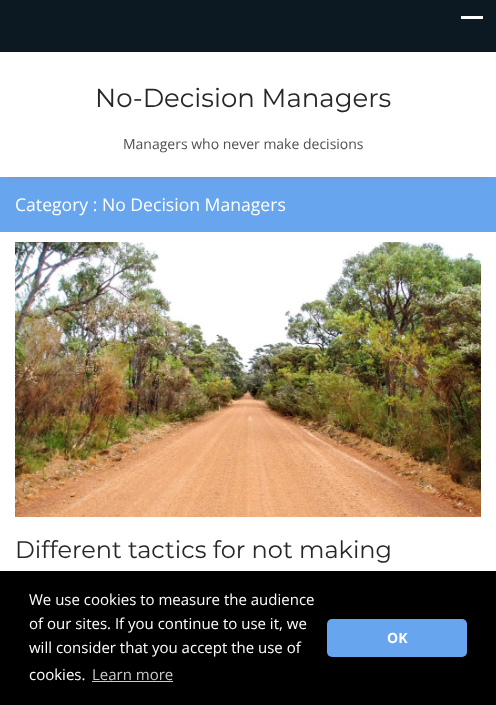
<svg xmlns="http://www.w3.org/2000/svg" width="496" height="705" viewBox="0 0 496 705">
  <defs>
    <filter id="blur1" x="-50%" y="-200%" width="200%" height="500%"><feGaussianBlur stdDeviation="2"/></filter>
  </defs>
  <rect width="100%" height="100%" fill="#ffffff"/>
  <rect x="0" y="0" width="496" height="52" fill="#0c1923"/>
  <rect x="461" y="16" width="22" height="3" fill="#ffffff"/>
  <rect x="0" y="177" width="496" height="55" fill="#68a5ef"/>
  <rect x="6" y="64" width="484" height="113" fill="#908f8f" filter="url(#blur1)"/>
  <rect x="2" y="60" width="492" height="117" fill="#ffffff"/>
  <text x="95" y="107" font-family="Montserrat" font-size="26" fill="#272727">No-Decision Managers</text>
  <text x="123" y="149" font-family="Open Sans" font-size="14" fill="#524e4e">Managers who never make decisions</text>
  <text x="15" y="211" font-family="Open Sans" font-size="17.6" fill="#ffffff">Category : No Decision Managers</text>
  <image x="15" y="242" width="466" height="275" href="img1.png"/>
  <text x="15" y="558" font-family="Montserrat" font-size="24" fill="#272727">Different tactics for not making</text>
  <rect x="0" y="571" width="496" height="134" fill="#000000"/>
  <text x="29" y="605" font-family="Open Sans" font-size="15" fill="#ffffff">We use cookies to measure the audience</text>
  <text x="29" y="629" font-family="Open Sans" font-size="15" fill="#ffffff">of our sites. If you continue to use it, we</text>
  <text x="29" y="653" font-family="Open Sans" font-size="15" fill="#ffffff">will consider that you accept the use of</text>
  <text x="29" y="680" font-family="Open Sans" font-size="15" fill="#ffffff">cookies.</text>
  <text x="92" y="680" font-family="Open Sans" font-size="15" fill="#cccccc">Learn more</text>
  <rect x="92" y="681" width="81" height="1" fill="#cccccc"/>
  <rect x="327" y="619" width="140" height="38" rx="5" fill="#68a5ef"/>
  <text x="387" y="643" font-family="Open Sans" font-size="14" font-weight="bold" fill="#ffffff">OK</text>
</svg>
